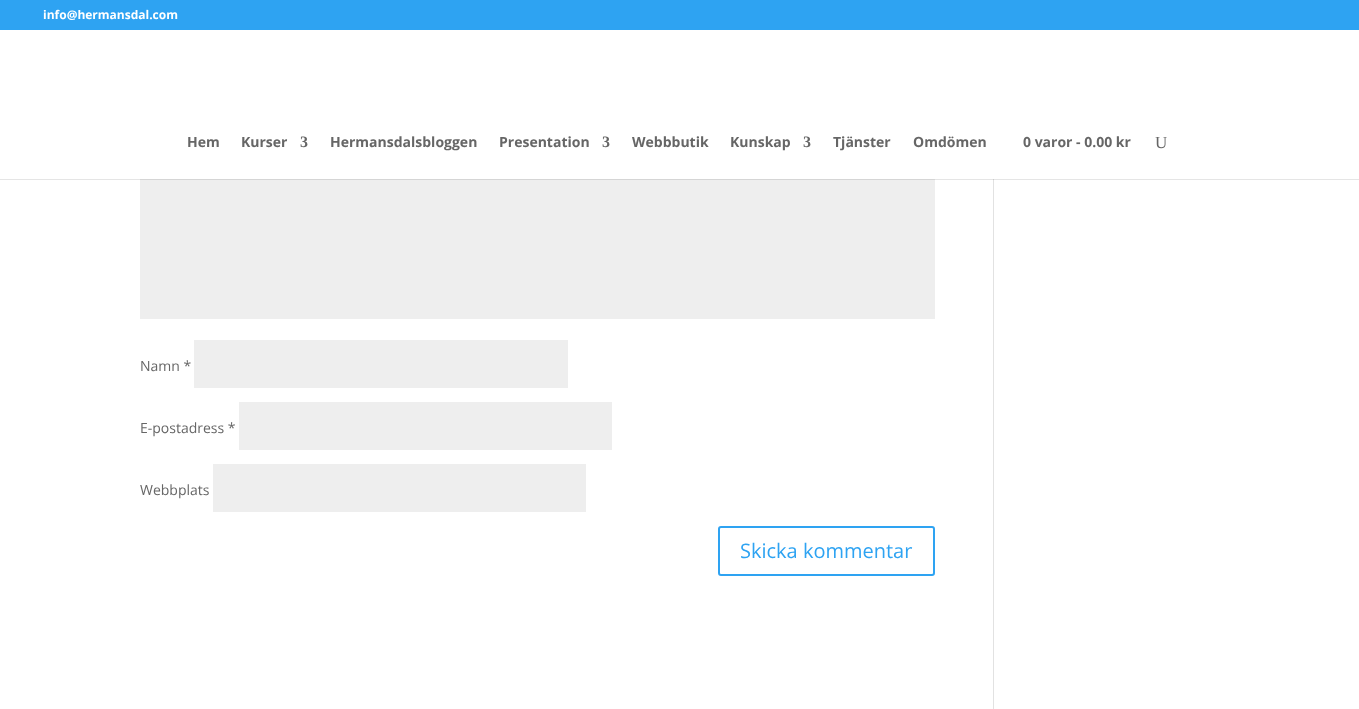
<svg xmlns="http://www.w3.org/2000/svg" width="1359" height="709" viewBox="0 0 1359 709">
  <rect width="100%" height="100%" fill="#ffffff"/>
  <rect x="0" y="0" width="1359" height="30" fill="#2ea3f2"/>
  <text x="43" y="19" font-family="Open Sans" font-size="12" font-weight="bold" fill="#ffffff">info@hermansdal.com</text>
  <rect x="140" y="179" width="795" height="140" fill="#eeeeee"/>
  <rect x="993" y="179" width="1" height="530" fill="#e2e2e2"/>
  <rect x="0" y="179" width="1359" height="1" fill="#000000" fill-opacity="0.1"/>
  <text x="187" y="147" font-family="Open Sans" font-size="14" font-weight="bold" fill="#666666">Hem</text>
  <text x="241" y="147" font-family="Open Sans" font-size="14" font-weight="bold" fill="#666666">Kurser</text>
  <text x="300" y="147" font-family="Liberation Serif" font-size="16" font-weight="bold" fill="#666666">3</text>
  <text x="330" y="147" font-family="Open Sans" font-size="14" font-weight="bold" fill="#666666">Hermansdalsbloggen</text>
  <text x="499" y="147" font-family="Open Sans" font-size="14" font-weight="bold" fill="#666666">Presentation</text>
  <text x="602" y="147" font-family="Liberation Serif" font-size="16" font-weight="bold" fill="#666666">3</text>
  <text x="632" y="147" font-family="Open Sans" font-size="14" font-weight="bold" fill="#666666">Webbbutik</text>
  <text x="730" y="147" font-family="Open Sans" font-size="14" font-weight="bold" fill="#666666">Kunskap</text>
  <text x="803" y="147" font-family="Liberation Serif" font-size="16" font-weight="bold" fill="#666666">3</text>
  <text x="833" y="147" font-family="Open Sans" font-size="14" font-weight="bold" fill="#666666">Tjänster</text>
  <text x="913" y="147" font-family="Open Sans" font-size="14" font-weight="bold" fill="#666666">Omdömen</text>
  <text x="1023" y="147" font-family="Open Sans" font-size="14" font-weight="bold" fill="#666666">0 varor - 0.00 kr</text>
  <text x="1155" y="148" font-family="Liberation Serif" font-size="17" fill="#666666">U</text>
  <text x="140" y="371" font-family="Open Sans" font-size="14" fill="#666666">Namn *</text>
  <rect x="194" y="340" width="374" height="48" fill="#eeeeee"/>
  <text x="140" y="433" font-family="Open Sans" font-size="14" fill="#666666">E-postadress *</text>
  <rect x="239" y="402" width="373" height="48" fill="#eeeeee"/>
  <text x="140" y="495" font-family="Open Sans" font-size="14" fill="#666666">Webbplats</text>
  <rect x="213" y="464" width="373" height="48" fill="#eeeeee"/>
  <rect x="719" y="527" width="215" height="48" rx="2" fill="none" stroke="#2ea3f2" stroke-width="2"/>
  <text x="740" y="558" font-family="Open Sans" font-size="20" fill="#2ea3f2">Skicka kommentar</text>
</svg>
